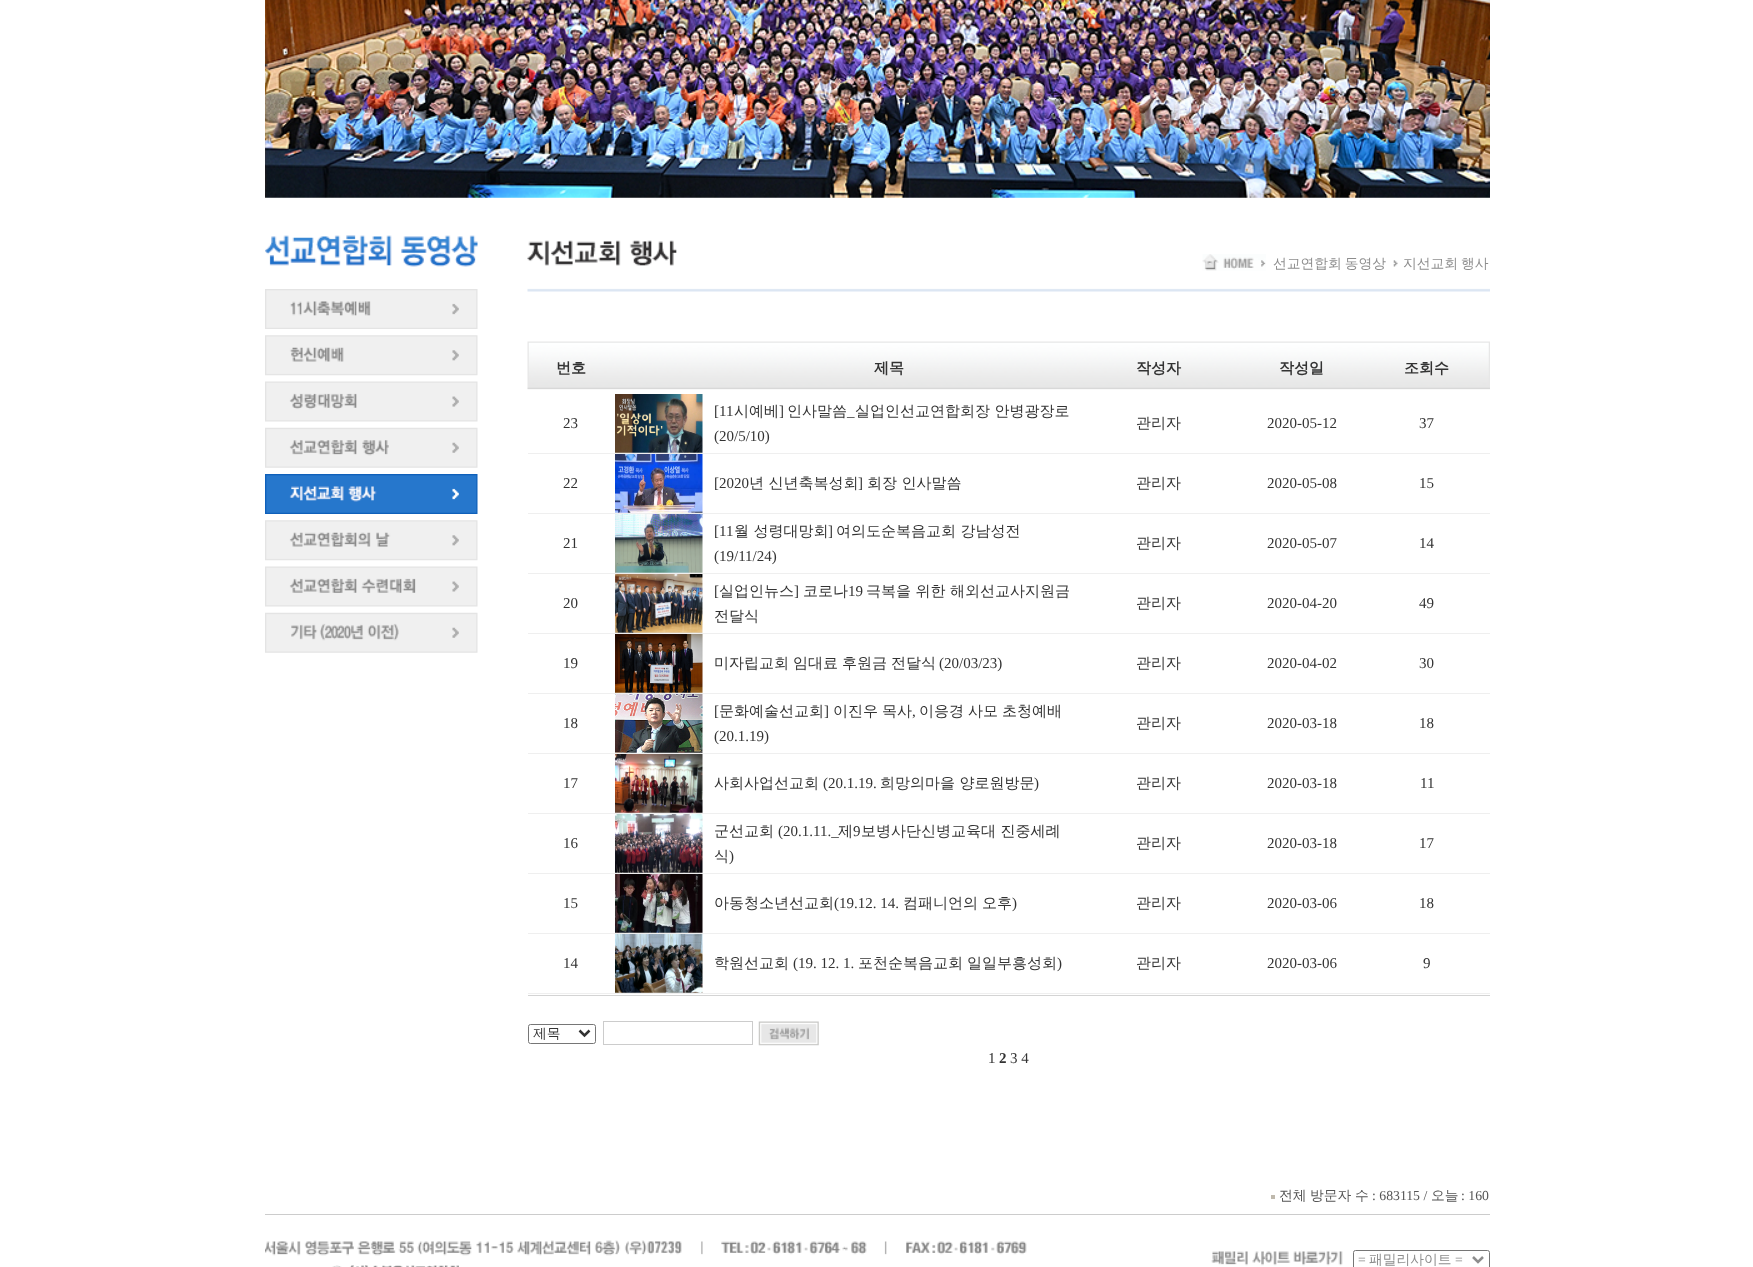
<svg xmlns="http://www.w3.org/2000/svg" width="1753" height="1267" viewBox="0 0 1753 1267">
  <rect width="100%" height="100%" fill="#ffffff"/>
  <image x="265" y="0" width="1225" height="198" href="img1.png"/>
  <image x="265" y="235" width="213" height="32" href="img2.png"/>
  <image x="265" y="289" width="213" height="40" href="img3.png"/>
  <image x="265" y="335" width="213" height="41" href="img4.png"/>
  <image x="265" y="381" width="213" height="41" href="img5.png"/>
  <image x="265" y="427" width="213" height="41" href="img6.png"/>
  <image x="265" y="474" width="213" height="40" href="img7.png"/>
  <image x="265" y="520" width="213" height="41" href="img8.png"/>
  <image x="265" y="566" width="213" height="41" href="img9.png"/>
  <image x="265" y="612" width="213" height="41" href="img10.png"/>
  <image x="527" y="240" width="963" height="52" href="img11.png"/>
  <image x="1202" y="254" width="64" height="17" href="img12.png"/>
  <text x="1273" y="268" word-spacing="-1" font-family="WenQuanYi Zen Hei" font-size="13.75" font-weight="500" fill="#8d8d8d">선교연합회 동영상</text>
  <image x="1393" y="260" width="5" height="7" href="img13.png"/>
  <text x="1403" y="268" word-spacing="-1" font-family="WenQuanYi Zen Hei" font-size="13.75" font-weight="500" fill="#8d8d8d">지선교회 행사</text>
  <image x="527" y="341" width="963" height="49" href="img14.png"/>
  <text x="556" y="373" font-family="WenQuanYi Zen Hei" font-size="15" font-weight="bold" fill="#333333">번호</text>
  <text x="874" y="373" font-family="WenQuanYi Zen Hei" font-size="15" font-weight="bold" fill="#333333">제목</text>
  <text x="1136" y="373" font-family="WenQuanYi Zen Hei" font-size="15" font-weight="bold" fill="#333333">작성자</text>
  <text x="1279" y="373" font-family="WenQuanYi Zen Hei" font-size="15" font-weight="bold" fill="#333333">작성일</text>
  <text x="1404" y="373" font-family="WenQuanYi Zen Hei" font-size="15" font-weight="bold" fill="#333333">조회수</text>
  <text x="563" y="428" font-family="Liberation Serif" font-size="15" fill="#333333">23</text>
  <image x="615" y="394" width="88" height="59" href="img15.png"/>
  <text x="714" y="416" font-family="Liberation Serif" font-size="15" fill="#333333">[11</text>
  <text x="734" y="416" font-family="WenQuanYi Zen Hei" font-size="15" font-weight="500" fill="#333333">시예베</text>
  <text x="779" y="416" font-family="Liberation Serif" font-size="15" fill="#333333">]</text>
  <text x="787" y="416" font-family="WenQuanYi Zen Hei" font-size="15" font-weight="500" fill="#333333">인사말씀</text>
  <text x="847" y="416" font-family="Liberation Serif" font-size="15" fill="#333333">_</text>
  <text x="855" y="416" font-family="WenQuanYi Zen Hei" font-size="15" font-weight="500" fill="#333333">실업인선교연합회장 안병광장로</text>
  <text x="714" y="441" font-family="Liberation Serif" font-size="15" fill="#333333">(20/5/10)</text>
  <text x="1136" y="428" font-family="WenQuanYi Zen Hei" font-size="15" font-weight="500" fill="#333333">관리자</text>
  <text x="1267" y="428" font-family="Liberation Serif" font-size="15" fill="#333333">2020-05-12</text>
  <text x="1419" y="428" font-family="Liberation Serif" font-size="15" fill="#333333">37</text>
  <rect x="528" y="453" width="962" height="1" fill="#efefef"/>
  <text x="563" y="488" font-family="Liberation Serif" font-size="15" fill="#333333">22</text>
  <image x="615" y="454" width="88" height="59" href="img16.png"/>
  <text x="714" y="488" font-family="Liberation Serif" font-size="15" fill="#333333">[2020</text>
  <text x="749" y="488" font-family="WenQuanYi Zen Hei" font-size="15" font-weight="500" fill="#333333">년 신년축복성회</text>
  <text x="858" y="488" font-family="Liberation Serif" font-size="15" fill="#333333">]</text>
  <text x="867" y="488" font-family="WenQuanYi Zen Hei" font-size="15" font-weight="500" fill="#333333">회장 인사말씀</text>
  <text x="1136" y="488" font-family="WenQuanYi Zen Hei" font-size="15" font-weight="500" fill="#333333">관리자</text>
  <text x="1267" y="488" font-family="Liberation Serif" font-size="15" fill="#333333">2020-05-08</text>
  <text x="1419" y="488" font-family="Liberation Serif" font-size="15" fill="#333333">15</text>
  <rect x="528" y="513" width="962" height="1" fill="#efefef"/>
  <text x="563" y="548" font-family="Liberation Serif" font-size="15" fill="#333333">21</text>
  <image x="615" y="514" width="88" height="59" href="img17.png"/>
  <text x="714" y="536" font-family="Liberation Serif" font-size="15" fill="#333333">[11</text>
  <text x="734" y="536" font-family="WenQuanYi Zen Hei" font-size="15" font-weight="500" fill="#333333">월 성령대망회</text>
  <text x="828" y="536" font-family="Liberation Serif" font-size="15" fill="#333333">]</text>
  <text x="836" y="536" font-family="WenQuanYi Zen Hei" font-size="15" font-weight="500" fill="#333333">여의도순복음교회 강남성전</text>
  <text x="714" y="561" font-family="Liberation Serif" font-size="15" fill="#333333">(19/11/24)</text>
  <text x="1136" y="548" font-family="WenQuanYi Zen Hei" font-size="15" font-weight="500" fill="#333333">관리자</text>
  <text x="1267" y="548" font-family="Liberation Serif" font-size="15" fill="#333333">2020-05-07</text>
  <text x="1419" y="548" font-family="Liberation Serif" font-size="15" fill="#333333">14</text>
  <rect x="528" y="573" width="962" height="1" fill="#efefef"/>
  <text x="563" y="608" font-family="Liberation Serif" font-size="15" fill="#333333">20</text>
  <image x="615" y="574" width="88" height="59" href="img18.png"/>
  <text x="714" y="596" font-family="Liberation Serif" font-size="15" fill="#333333">[</text>
  <text x="719" y="596" font-family="WenQuanYi Zen Hei" font-size="15" font-weight="500" fill="#333333">실업인뉴스</text>
  <text x="794" y="596" font-family="Liberation Serif" font-size="15" fill="#333333">]</text>
  <text x="803" y="596" font-family="WenQuanYi Zen Hei" font-size="15" font-weight="500" fill="#333333">코로나</text>
  <text x="848" y="596" font-family="Liberation Serif" font-size="15" fill="#333333">19</text>
  <text x="866" y="596" font-family="WenQuanYi Zen Hei" font-size="15" font-weight="500" fill="#333333">극복을 위한 해외선교사지원금</text>
  <text x="714" y="621" font-family="WenQuanYi Zen Hei" font-size="15" font-weight="500" fill="#333333">전달식</text>
  <text x="1136" y="608" font-family="WenQuanYi Zen Hei" font-size="15" font-weight="500" fill="#333333">관리자</text>
  <text x="1267" y="608" font-family="Liberation Serif" font-size="15" fill="#333333">2020-04-20</text>
  <text x="1419" y="608" font-family="Liberation Serif" font-size="15" fill="#333333">49</text>
  <rect x="528" y="633" width="962" height="1" fill="#efefef"/>
  <text x="563" y="668" font-family="Liberation Serif" font-size="15" fill="#333333">19</text>
  <image x="615" y="634" width="88" height="59" href="img19.png"/>
  <text x="714" y="668" word-spacing="-0.5" font-family="WenQuanYi Zen Hei" font-size="15" font-weight="500" fill="#333333">미자립교회 임대료 후원금 전달식</text>
  <text x="939" y="668" font-family="Liberation Serif" font-size="15" fill="#333333">(20/03/23)</text>
  <text x="1136" y="668" font-family="WenQuanYi Zen Hei" font-size="15" font-weight="500" fill="#333333">관리자</text>
  <text x="1267" y="668" font-family="Liberation Serif" font-size="15" fill="#333333">2020-04-02</text>
  <text x="1419" y="668" font-family="Liberation Serif" font-size="15" fill="#333333">30</text>
  <rect x="528" y="693" width="962" height="1" fill="#efefef"/>
  <text x="563" y="728" font-family="Liberation Serif" font-size="15" fill="#333333">18</text>
  <image x="615" y="694" width="88" height="59" href="img20.png"/>
  <text x="714" y="716" font-family="Liberation Serif" font-size="15" fill="#333333">[</text>
  <text x="719" y="716" font-family="WenQuanYi Zen Hei" font-size="15" font-weight="500" fill="#333333">문화예술선교회</text>
  <text x="824" y="716" font-family="Liberation Serif" font-size="15" fill="#333333">]</text>
  <text x="833" y="716" word-spacing="-0.5" font-family="WenQuanYi Zen Hei" font-size="15" font-weight="500" fill="#333333">이진우 목사</text>
  <text x="912" y="716" font-family="Liberation Serif" font-size="15" fill="#333333">,</text>
  <text x="919" y="716" word-spacing="-0.5" font-family="WenQuanYi Zen Hei" font-size="15" font-weight="500" fill="#333333">이응경 사모 초청예배</text>
  <text x="714" y="741" font-family="Liberation Serif" font-size="15" fill="#333333">(20.1.19)</text>
  <text x="1136" y="728" font-family="WenQuanYi Zen Hei" font-size="15" font-weight="500" fill="#333333">관리자</text>
  <text x="1267" y="728" font-family="Liberation Serif" font-size="15" fill="#333333">2020-03-18</text>
  <text x="1419" y="728" font-family="Liberation Serif" font-size="15" fill="#333333">18</text>
  <rect x="528" y="753" width="962" height="1" fill="#efefef"/>
  <text x="563" y="788" font-family="Liberation Serif" font-size="15" fill="#333333">17</text>
  <image x="615" y="754" width="88" height="59" href="img21.png"/>
  <text x="714" y="788" font-family="WenQuanYi Zen Hei" font-size="15" font-weight="500" fill="#333333">사회사업선교회</text>
  <text x="823" y="788" font-family="Liberation Serif" font-size="15" fill="#333333">(20.1.19.</text>
  <text x="880" y="788" font-family="WenQuanYi Zen Hei" font-size="15" font-weight="500" fill="#333333">희망의마을 양로원방문</text>
  <text x="1034" y="788" font-family="Liberation Serif" font-size="15" fill="#333333">)</text>
  <text x="1136" y="788" font-family="WenQuanYi Zen Hei" font-size="15" font-weight="500" fill="#333333">관리자</text>
  <text x="1267" y="788" font-family="Liberation Serif" font-size="15" fill="#333333">2020-03-18</text>
  <text x="1420" y="788" font-family="Liberation Serif" font-size="15" fill="#333333">11</text>
  <rect x="528" y="813" width="962" height="1" fill="#efefef"/>
  <text x="563" y="848" font-family="Liberation Serif" font-size="15" fill="#333333">16</text>
  <image x="615" y="814" width="88" height="59" href="img22.png"/>
  <text x="714" y="836" font-family="WenQuanYi Zen Hei" font-size="15" font-weight="500" fill="#333333">군선교회</text>
  <text x="778" y="836" font-family="Liberation Serif" font-size="15" fill="#333333">(20.1.11._</text>
  <text x="838" y="836" font-family="WenQuanYi Zen Hei" font-size="15" font-weight="500" fill="#333333">제</text>
  <text x="853" y="836" font-family="Liberation Serif" font-size="15" fill="#333333">9</text>
  <text x="861" y="836" font-family="WenQuanYi Zen Hei" font-size="15" font-weight="500" fill="#333333">보병사단신병교육대 진중세례</text>
  <text x="714" y="861" font-family="WenQuanYi Zen Hei" font-size="15" font-weight="500" fill="#333333">식</text>
  <text x="729" y="861" font-family="Liberation Serif" font-size="15" fill="#333333">)</text>
  <text x="1136" y="848" font-family="WenQuanYi Zen Hei" font-size="15" font-weight="500" fill="#333333">관리자</text>
  <text x="1267" y="848" font-family="Liberation Serif" font-size="15" fill="#333333">2020-03-18</text>
  <text x="1419" y="848" font-family="Liberation Serif" font-size="15" fill="#333333">17</text>
  <rect x="528" y="873" width="962" height="1" fill="#efefef"/>
  <text x="563" y="908" font-family="Liberation Serif" font-size="15" fill="#333333">15</text>
  <image x="615" y="874" width="88" height="59" href="img23.png"/>
  <text x="714" y="908" font-family="WenQuanYi Zen Hei" font-size="15" font-weight="500" fill="#333333">아동청소년선교회</text>
  <text x="834" y="908" font-family="Liberation Serif" font-size="15" fill="#333333">(19.12. 14.</text>
  <text x="903" y="908" font-family="WenQuanYi Zen Hei" font-size="15" font-weight="500" fill="#333333">컴패니언의</text>
  <text x="982" y="908" font-family="WenQuanYi Zen Hei" font-size="15" font-weight="500" fill="#333333">오후</text>
  <text x="1012" y="908" font-family="Liberation Serif" font-size="15" fill="#333333">)</text>
  <text x="1136" y="908" font-family="WenQuanYi Zen Hei" font-size="15" font-weight="500" fill="#333333">관리자</text>
  <text x="1267" y="908" font-family="Liberation Serif" font-size="15" fill="#333333">2020-03-06</text>
  <text x="1419" y="908" font-family="Liberation Serif" font-size="15" fill="#333333">18</text>
  <rect x="528" y="933" width="962" height="1" fill="#efefef"/>
  <text x="563" y="968" font-family="Liberation Serif" font-size="15" fill="#333333">14</text>
  <image x="615" y="934" width="88" height="59" href="img24.png"/>
  <text x="714" y="968" font-family="WenQuanYi Zen Hei" font-size="15" font-weight="500" fill="#333333">학원선교회</text>
  <text x="793" y="968" font-family="Liberation Serif" font-size="15" fill="#333333">(19. 12. 1.</text>
  <text x="858" y="968" font-family="WenQuanYi Zen Hei" font-size="15" font-weight="500" fill="#333333">포천순복음교회</text>
  <text x="967" y="968" font-family="WenQuanYi Zen Hei" font-size="15" font-weight="500" fill="#333333">일일부흥성회</text>
  <text x="1057" y="968" font-family="Liberation Serif" font-size="15" fill="#333333">)</text>
  <text x="1136" y="968" font-family="WenQuanYi Zen Hei" font-size="15" font-weight="500" fill="#333333">관리자</text>
  <text x="1267" y="968" font-family="Liberation Serif" font-size="15" fill="#333333">2020-03-06</text>
  <text x="1423" y="968" font-family="Liberation Serif" font-size="15" fill="#333333">9</text>
  <rect x="528" y="993" width="962" height="1" fill="#efefef"/>
  <rect x="528" y="995" width="962" height="1" fill="#d4d4d4"/>
  <rect x="528.5" y="1024.5" width="67" height="19" rx="2" fill="none" stroke="#767676"/>
  <path d="M579.5 1030.5L584.5 1035.5L589.5 1030.5" fill="none" stroke="#333333" stroke-width="2.5"/>
  <text x="533" y="1038" font-family="WenQuanYi Zen Hei" font-size="13.75" font-weight="500" fill="#333333">제목</text>
  <rect x="603.5" y="1021.5" width="149" height="23" fill="none" stroke="#cccccc"/>
  <image x="758" y="1021" width="61" height="25" href="img25.png"/>
  <text x="988" y="1063" font-family="Liberation Serif" font-size="15" fill="#333333">1</text>
  <text x="999" y="1063" font-family="Liberation Serif" font-size="15" font-weight="bold" fill="#333333">2</text>
  <text x="1010" y="1063" font-family="Liberation Serif" font-size="15" fill="#333333">3 4</text>
  <rect x="1271" y="1195" width="4" height="4" fill="#bfb9ad"/>
  <text x="1279" y="1200" font-family="WenQuanYi Zen Hei" font-size="13.75" font-weight="500" fill="#555555">전체</text>
  <text x="1310" y="1200" font-family="WenQuanYi Zen Hei" font-size="13.75" font-weight="500" fill="#555555">방문자</text>
  <text x="1355" y="1200" font-family="WenQuanYi Zen Hei" font-size="13.75" font-weight="500" fill="#555555">수</text>
  <text x="1372" y="1200" font-family="Liberation Serif" font-size="13.75" fill="#555555">: 683115 /</text>
  <text x="1431" y="1200" font-family="WenQuanYi Zen Hei" font-size="13.75" font-weight="500" fill="#555555">오늘</text>
  <text x="1461" y="1200" font-family="Liberation Serif" font-size="13.75" fill="#555555">: 160</text>
  <rect x="265" y="1214" width="1225" height="1" fill="#cccccc"/>
  <image x="265" y="1240" width="762" height="27" href="img26.png"/>
  <image x="1211" y="1251" width="132" height="15" href="img27.png"/>
  <rect x="1353.5" y="1250.5" width="136" height="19" rx="2" fill="none" stroke="#767676"/>
  <path d="M1473 1257L1478 1262L1483 1257" fill="none" stroke="#8d8d8d" stroke-width="2.5"/>
  <text x="1358" y="1264" font-family="Liberation Serif" font-size="13.75" fill="#8d8d8d">=</text>
  <text x="1369" y="1264" font-family="WenQuanYi Zen Hei" font-size="13.75" font-weight="500" fill="#8d8d8d">패밀리사이트</text>
  <text x="1455" y="1264" font-family="Liberation Serif" font-size="13.75" fill="#8d8d8d">=</text>
</svg>
